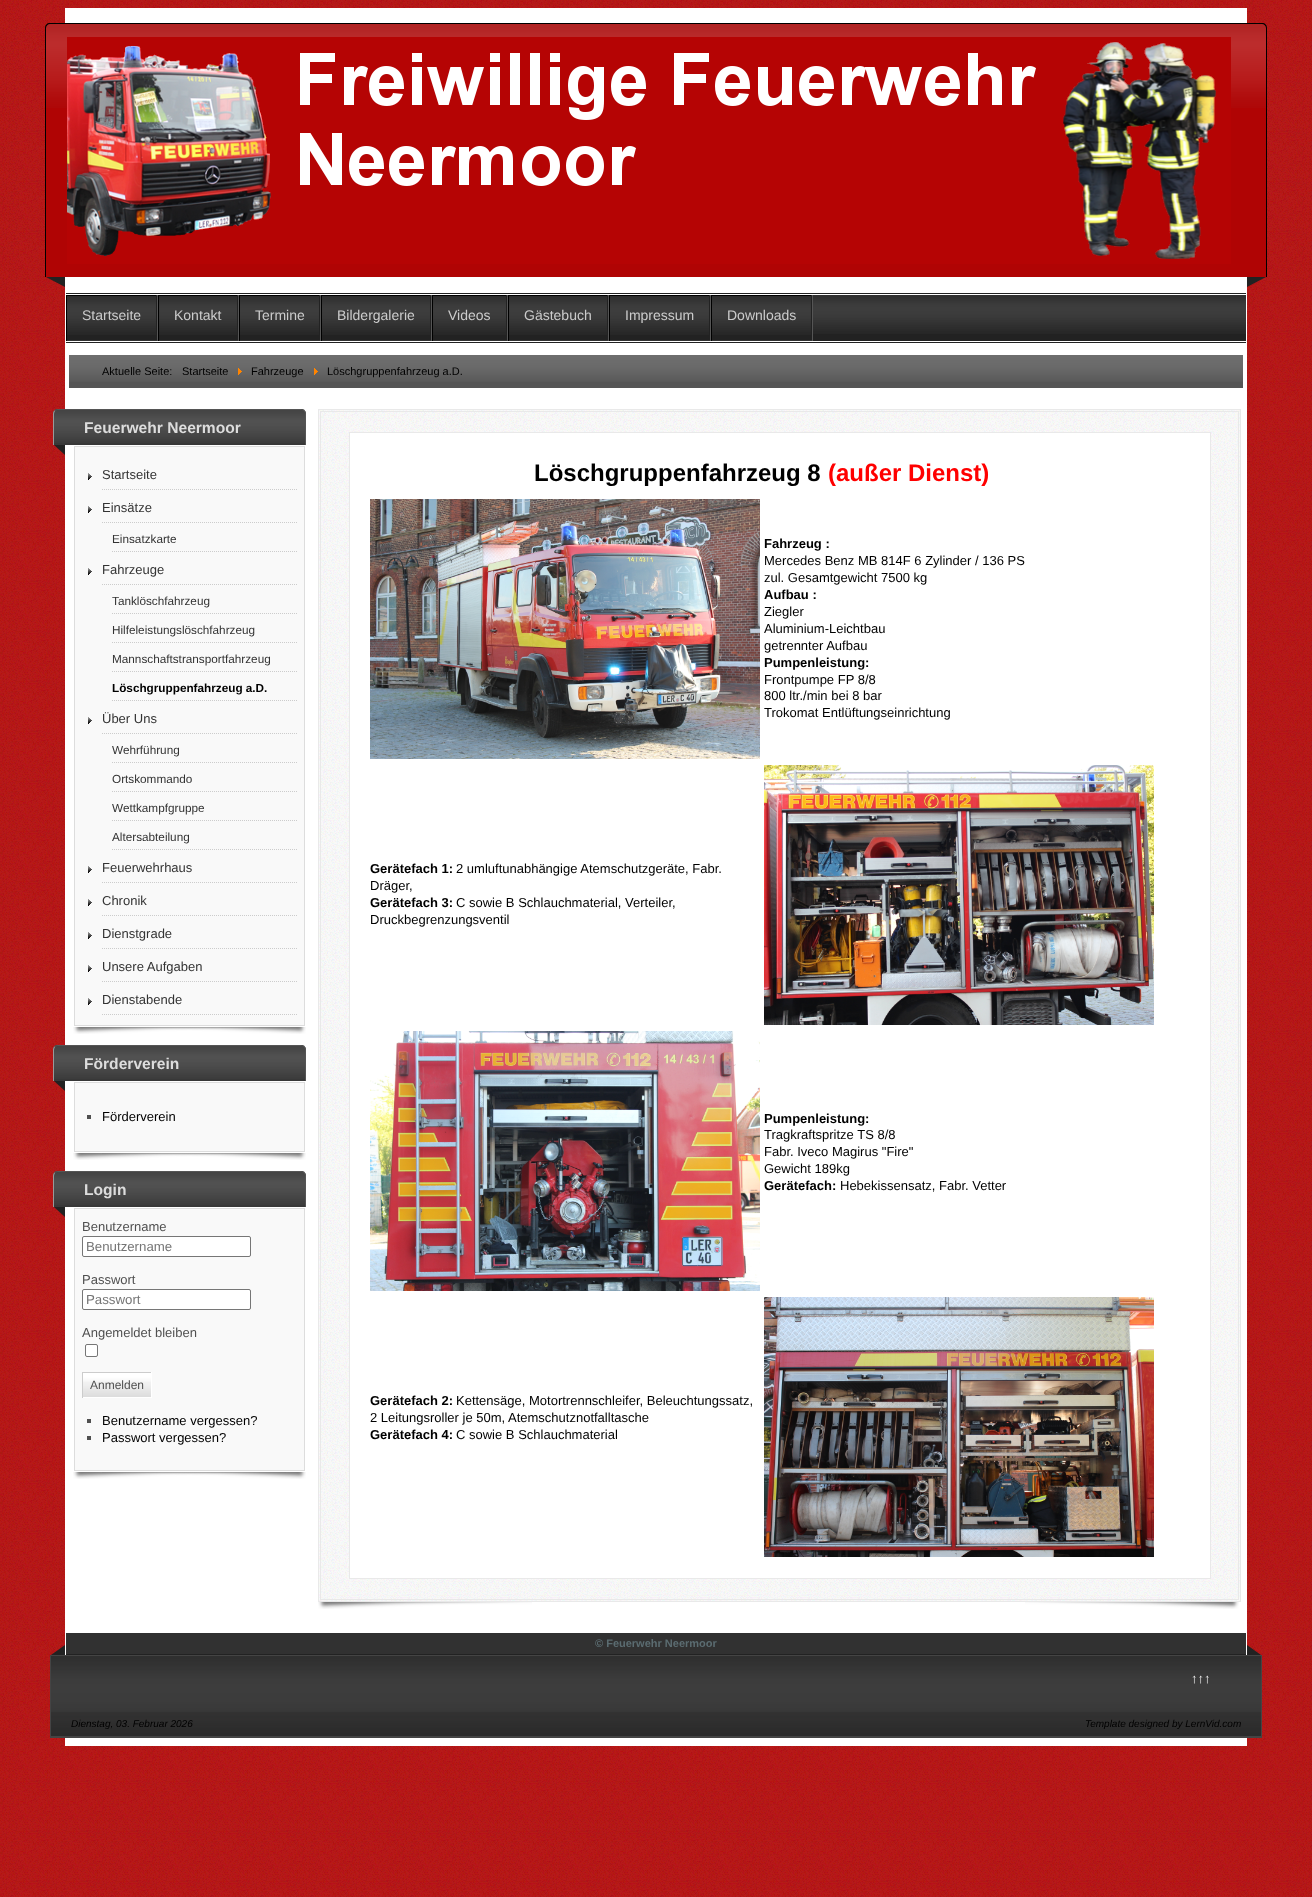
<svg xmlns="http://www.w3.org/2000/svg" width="1312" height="1897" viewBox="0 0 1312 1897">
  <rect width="100%" height="100%" fill="#b00404"/>
  <image x="0" y="0" width="1312" height="1897" href="img1.png"/>
  <rect x="65" y="8" width="1182" height="1738" fill="#ffffff"/>
  <path d="M50 23H1262C1265 23 1267 25 1267 28V277H45V28C45 25 47 23 50 23Z" fill="#b00404"/>
  <image x="45" y="24" width="1222" height="84" href="img2.png"/>
  <path d="M50 23H1262C1265 23 1267 25 1267 28V277H45V28C45 25 47 23 50 23ZM50 24H1262C1264 24 1266 26 1266 28V277H46V28C46 26 48 24 50 24Z" fill="#000000" fill-rule="evenodd"/>
  <image x="67" y="37" width="1164" height="227" href="img3.png"/>
  <path d="M46 277H65V287Z" fill="#222222"/>
  <path d="M1247 277H1266L1247 287Z" fill="#222222"/>
  <rect x="66" y="293" width="1180" height="50" fill="#222222"/>
  <image x="813" y="295" width="433" height="39" href="img4.png"/>
  <rect x="66" y="294" width="1180" height="1" fill="#ffffff"/>
  <rect x="66" y="341" width="1180" height="1" fill="#ffffff"/>
  <rect x="157" y="295" width="1" height="46" fill="#555555"/>
  <image x="67" y="296" width="89" height="39" href="img5.png"/>
  <rect x="66" y="295" width="91" height="1" fill="#000000"/>
  <rect x="156" y="295" width="1" height="1" fill="#222222"/>
  <rect x="66" y="340" width="91" height="1" fill="#333333"/>
  <rect x="66" y="295" width="1" height="46" fill="#000000"/>
  <text x="82" y="320" font-family="Liberation Sans" font-size="14" fill="#cccccc">Startseite</text>
  <rect x="238" y="295" width="1" height="46" fill="#555555"/>
  <image x="159" y="296" width="78" height="39" href="img6.png"/>
  <rect x="158" y="295" width="80" height="1" fill="#000000"/>
  <rect x="237" y="295" width="1" height="1" fill="#222222"/>
  <rect x="158" y="340" width="80" height="1" fill="#333333"/>
  <rect x="158" y="295" width="1" height="46" fill="#000000"/>
  <text x="174" y="320" font-family="Liberation Sans" font-size="14" fill="#cccccc">Kontakt</text>
  <rect x="320" y="295" width="1" height="46" fill="#555555"/>
  <image x="240" y="296" width="79" height="39" href="img7.png"/>
  <rect x="239" y="295" width="81" height="1" fill="#000000"/>
  <rect x="319" y="295" width="1" height="1" fill="#222222"/>
  <rect x="239" y="340" width="81" height="1" fill="#333333"/>
  <rect x="239" y="295" width="1" height="46" fill="#000000"/>
  <text x="255" y="320" font-family="Liberation Sans" font-size="14" fill="#cccccc">Termine</text>
  <rect x="431" y="295" width="1" height="46" fill="#555555"/>
  <image x="322" y="296" width="108" height="39" href="img8.png"/>
  <rect x="321" y="295" width="110" height="1" fill="#000000"/>
  <rect x="430" y="295" width="1" height="1" fill="#222222"/>
  <rect x="321" y="340" width="110" height="1" fill="#333333"/>
  <rect x="321" y="295" width="1" height="46" fill="#000000"/>
  <text x="337" y="320" font-family="Liberation Sans" font-size="14" fill="#cccccc">Bildergalerie</text>
  <rect x="507" y="295" width="1" height="46" fill="#555555"/>
  <image x="433" y="296" width="73" height="39" href="img9.png"/>
  <rect x="432" y="295" width="75" height="1" fill="#000000"/>
  <rect x="506" y="295" width="1" height="1" fill="#222222"/>
  <rect x="432" y="340" width="75" height="1" fill="#333333"/>
  <rect x="432" y="295" width="1" height="46" fill="#000000"/>
  <text x="448" y="320" font-family="Liberation Sans" font-size="14" fill="#cccccc">Videos</text>
  <rect x="608" y="295" width="1" height="46" fill="#555555"/>
  <image x="509" y="296" width="98" height="39" href="img10.png"/>
  <rect x="508" y="295" width="100" height="1" fill="#000000"/>
  <rect x="607" y="295" width="1" height="1" fill="#222222"/>
  <rect x="508" y="340" width="100" height="1" fill="#333333"/>
  <rect x="508" y="295" width="1" height="46" fill="#000000"/>
  <text x="524" y="320" font-family="Liberation Sans" font-size="14" fill="#cccccc">Gästebuch</text>
  <rect x="710" y="295" width="1" height="46" fill="#555555"/>
  <image x="610" y="296" width="99" height="39" href="img11.png"/>
  <rect x="609" y="295" width="101" height="1" fill="#000000"/>
  <rect x="709" y="295" width="1" height="1" fill="#222222"/>
  <rect x="609" y="340" width="101" height="1" fill="#333333"/>
  <rect x="609" y="295" width="1" height="46" fill="#000000"/>
  <text x="625" y="320" font-family="Liberation Sans" font-size="14" fill="#cccccc">Impressum</text>
  <rect x="812" y="295" width="1" height="46" fill="#555555"/>
  <image x="712" y="296" width="99" height="39" href="img11.png"/>
  <rect x="711" y="295" width="101" height="1" fill="#000000"/>
  <rect x="811" y="295" width="1" height="1" fill="#222222"/>
  <rect x="711" y="340" width="101" height="1" fill="#333333"/>
  <rect x="711" y="295" width="1" height="46" fill="#000000"/>
  <text x="727" y="320" font-family="Liberation Sans" font-size="14" fill="#cccccc">Downloads</text>
  <rect x="69" y="355" width="1174" height="33" fill="#555555"/>
  <image x="69" y="355" width="1174" height="27" href="img12.png"/>
  <text x="102" y="375" font-family="Liberation Sans" font-size="11" fill="#000000">Aktuelle Seite:</text>
  <text x="182" y="375" font-family="Liberation Sans" font-size="11" fill="#000000">Startseite</text>
  <image x="238" y="368" width="4" height="7" href="img13.png"/>
  <text x="251" y="375" font-family="Liberation Sans" font-size="11" fill="#000000">Fahrzeuge</text>
  <image x="314" y="368" width="4" height="7" href="img13.png"/>
  <text x="327" y="375" font-family="Liberation Sans" font-size="11" fill="#000000">Löschgruppenfahrzeug a.D.</text>
  <path d="M58 409H301C304 409 306 411 306 414V445H53V414C53 411 55 409 58 409Z" fill="#383838"/>
  <image x="53" y="410" width="253" height="33" href="img14.png"/>
  <path d="M58 409C56 409 55 410 54 410L55 411C56 410 57 410 58 410H301C302 410 303 410 304 411L305 410C304 410 302 409 301 409Z" fill="#555555"/>
  <path d="M305 445H306V414C306 412.5 305.5 411 304.5 410.5L304 411C304.5 412 305 413 305 414Z" fill="#555555"/>
  <path d="M53 445H54V414C54 413 54.5 412 55 411L54.5 410.5C53.5 411 53 412.5 53 414Z" fill="#999999"/>
  <text x="84" y="433" font-family="Liberation Sans" font-size="15.6" font-weight="bold" fill="#dddddd">Feuerwehr Neermoor</text>
  <path d="M54 445H65V455Z" fill="#222222"/>
  <rect x="74.5" y="446.5" width="230" height="579" fill="#f9f9f9" stroke="#dddddd"/>
  <image x="88" y="473" width="4" height="7" href="img15.png"/>
  <path d="M102 489.5H297" fill="none" stroke="#cccccc" stroke-dasharray="1 1"/>
  <text x="102" y="479" font-family="Liberation Sans" font-size="13" fill="#333333">Startseite</text>
  <image x="88" y="506" width="4" height="7" href="img15.png"/>
  <path d="M102 522.5H297" fill="none" stroke="#cccccc" stroke-dasharray="1 1"/>
  <text x="102" y="512" font-family="Liberation Sans" font-size="13" fill="#333333">Einsätze</text>
  <path d="M112 551.5H297" fill="none" stroke="#cccccc" stroke-dasharray="1 1"/>
  <text x="112" y="543" font-family="Liberation Sans" font-size="11.75" fill="#333333">Einsatzkarte</text>
  <image x="88" y="568" width="4" height="7" href="img15.png"/>
  <path d="M102 584.5H297" fill="none" stroke="#cccccc" stroke-dasharray="1 1"/>
  <text x="102" y="574" font-family="Liberation Sans" font-size="13" fill="#333333">Fahrzeuge</text>
  <path d="M112 613.5H297" fill="none" stroke="#cccccc" stroke-dasharray="1 1"/>
  <text x="112" y="605" font-family="Liberation Sans" font-size="11.75" fill="#333333">Tanklöschfahrzeug</text>
  <path d="M112 642.5H297" fill="none" stroke="#cccccc" stroke-dasharray="1 1"/>
  <text x="112" y="634" font-family="Liberation Sans" font-size="11.75" fill="#333333">Hilfeleistungslöschfahrzeug</text>
  <path d="M112 671.5H297" fill="none" stroke="#cccccc" stroke-dasharray="1 1"/>
  <text x="112" y="663" font-family="Liberation Sans" font-size="11.75" fill="#333333">Mannschaftstransportfahrzeug</text>
  <path d="M112 700.5H297" fill="none" stroke="#cccccc" stroke-dasharray="1 1"/>
  <text x="112" y="692" font-family="Liberation Sans" font-size="11.75" font-weight="bold" fill="#000000">Löschgruppenfahrzeug a.D.</text>
  <image x="88" y="717" width="4" height="7" href="img15.png"/>
  <path d="M102 733.5H297" fill="none" stroke="#cccccc" stroke-dasharray="1 1"/>
  <text x="102" y="723" font-family="Liberation Sans" font-size="13" fill="#333333">Über Uns</text>
  <path d="M112 762.5H297" fill="none" stroke="#cccccc" stroke-dasharray="1 1"/>
  <text x="112" y="754" font-family="Liberation Sans" font-size="11.75" fill="#333333">Wehrführung</text>
  <path d="M112 791.5H297" fill="none" stroke="#cccccc" stroke-dasharray="1 1"/>
  <text x="112" y="783" font-family="Liberation Sans" font-size="11.75" fill="#333333">Ortskommando</text>
  <path d="M112 820.5H297" fill="none" stroke="#cccccc" stroke-dasharray="1 1"/>
  <text x="112" y="812" font-family="Liberation Sans" font-size="11.75" fill="#333333">Wettkampfgruppe</text>
  <path d="M112 849.5H297" fill="none" stroke="#cccccc" stroke-dasharray="1 1"/>
  <text x="112" y="841" font-family="Liberation Sans" font-size="11.75" fill="#333333">Altersabteilung</text>
  <image x="88" y="866" width="4" height="7" href="img15.png"/>
  <path d="M102 882.5H297" fill="none" stroke="#cccccc" stroke-dasharray="1 1"/>
  <text x="102" y="872" font-family="Liberation Sans" font-size="13" fill="#333333">Feuerwehrhaus</text>
  <image x="88" y="899" width="4" height="7" href="img15.png"/>
  <path d="M102 915.5H297" fill="none" stroke="#cccccc" stroke-dasharray="1 1"/>
  <text x="102" y="905" font-family="Liberation Sans" font-size="13" fill="#333333">Chronik</text>
  <image x="88" y="932" width="4" height="7" href="img15.png"/>
  <path d="M102 948.5H297" fill="none" stroke="#cccccc" stroke-dasharray="1 1"/>
  <text x="102" y="938" font-family="Liberation Sans" font-size="13" fill="#333333">Dienstgrade</text>
  <image x="88" y="965" width="4" height="7" href="img15.png"/>
  <path d="M102 981.5H297" fill="none" stroke="#cccccc" stroke-dasharray="1 1"/>
  <text x="102" y="971" font-family="Liberation Sans" font-size="13" fill="#333333">Unsere Aufgaben</text>
  <image x="88" y="998" width="4" height="7" href="img15.png"/>
  <path d="M102 1014.5H297" fill="none" stroke="#cccccc" stroke-dasharray="1 1"/>
  <text x="102" y="1004" font-family="Liberation Sans" font-size="13" fill="#333333">Dienstabende</text>
  <image x="73" y="1027" width="213" height="7" href="img16.png"/>
  <image x="102" y="1027" width="204" height="7" href="img17.png"/>
  <path d="M58 1045H301C304 1045 306 1047 306 1050V1081H53V1050C53 1047 55 1045 58 1045Z" fill="#383838"/>
  <image x="53" y="1046" width="253" height="33" href="img18.png"/>
  <path d="M58 1045C56 1045 55 1046 54 1046L55 1047C56 1046 57 1046 58 1046H301C302 1046 303 1046 304 1047L305 1046C304 1046 302 1045 301 1045Z" fill="#555555"/>
  <path d="M305 1081H306V1050C306 1048.5 305.5 1047 304.5 1046.5L304 1047C304.5 1048 305 1049 305 1050Z" fill="#555555"/>
  <path d="M53 1081H54V1050C54 1049 54.5 1048 55 1047L54.5 1046.5C53.5 1047 53 1048.5 53 1050Z" fill="#999999"/>
  <text x="84" y="1069" font-family="Liberation Sans" font-size="15.6" font-weight="bold" fill="#dddddd">Förderverein</text>
  <path d="M54 1081H65V1091Z" fill="#222222"/>
  <rect x="74.5" y="1082.5" width="230" height="69" fill="#f9f9f9" stroke="#dddddd"/>
  <rect x="87" y="1115" width="4" height="4" fill="#505050"/>
  <text x="102" y="1121" font-family="Liberation Sans" font-size="13" fill="#000000">Förderverein</text>
  <image x="73" y="1153" width="213" height="7" href="img16.png"/>
  <image x="102" y="1153" width="204" height="7" href="img17.png"/>
  <path d="M58 1171H301C304 1171 306 1173 306 1176V1207H53V1176C53 1173 55 1171 58 1171Z" fill="#383838"/>
  <image x="53" y="1172" width="253" height="33" href="img19.png"/>
  <path d="M58 1171C56 1171 55 1172 54 1172L55 1173C56 1172 57 1172 58 1172H301C302 1172 303 1172 304 1173L305 1172C304 1172 302 1171 301 1171Z" fill="#555555"/>
  <path d="M305 1207H306V1176C306 1174.5 305.5 1173 304.5 1172.5L304 1173C304.5 1174 305 1175 305 1176Z" fill="#555555"/>
  <path d="M53 1207H54V1176C54 1175 54.5 1174 55 1173L54.5 1172.5C53.5 1173 53 1174.5 53 1176Z" fill="#999999"/>
  <text x="84" y="1195" font-family="Liberation Sans" font-size="15.6" font-weight="bold" fill="#dddddd">Login</text>
  <path d="M54 1207H65V1217Z" fill="#222222"/>
  <rect x="74.5" y="1208.5" width="230" height="262" fill="#f9f9f9" stroke="#dddddd"/>
  <text x="82" y="1231" font-family="Liberation Sans" font-size="13" fill="#505050">Benutzername</text>
  <rect x="82.5" y="1236.5" width="168" height="20" rx="1.5" fill="#ffffff" stroke="#767676"/>
  <text x="86" y="1251" font-family="Liberation Sans" font-size="13.25" fill="#757575">Benutzername</text>
  <text x="82" y="1284" font-family="Liberation Sans" font-size="13" fill="#505050">Passwort</text>
  <rect x="82.5" y="1289.5" width="168" height="20" rx="1.5" fill="#ffffff" stroke="#767676"/>
  <text x="86" y="1304" font-family="Liberation Sans" font-size="13.25" fill="#757575">Passwort</text>
  <text x="82" y="1337" font-family="Liberation Sans" font-size="13" fill="#505050">Angemeldet bleiben</text>
  <rect x="85.5" y="1344.5" width="12" height="12" rx="1.5" fill="#ffffff" stroke="#767676"/>
  <image x="83" y="1373" width="68" height="24" href="img20.png"/>
  <rect x="82" y="1372" width="70" height="1" fill="#cccccc"/>
  <rect x="151" y="1372" width="1" height="26" fill="#ffffff"/>
  <rect x="82" y="1397" width="70" height="1" fill="#ffffff"/>
  <rect x="82" y="1372" width="1" height="26" fill="#cccccc"/>
  <text x="90" y="1389" font-family="Liberation Sans" font-size="12" fill="#505050">Anmelden</text>
  <rect x="87" y="1419" width="4" height="4" fill="#505050"/>
  <text x="102" y="1425" font-family="Liberation Sans" font-size="13" fill="#000000">Benutzername vergessen?</text>
  <rect x="87" y="1436" width="4" height="4" fill="#505050"/>
  <text x="102" y="1442" font-family="Liberation Sans" font-size="13" fill="#000000">Passwort vergessen?</text>
  <image x="73" y="1472" width="213" height="7" href="img16.png"/>
  <image x="102" y="1472" width="204" height="7" href="img17.png"/>
  <rect x="319" y="410" width="921" height="1191" fill="#f9f9f9"/>
  <image x="319" y="410" width="921" height="1191" href="img21.png"/>
  <rect x="318.5" y="409.5" width="922" height="1192" fill="none" stroke="#e9e9e9"/>
  <rect x="320.5" y="411.5" width="918" height="1188" fill="none" stroke="#e9e9e9"/>
  <rect x="349.5" y="432.5" width="861" height="1146" fill="#ffffff" stroke="#e9e9e9"/>
  <text x="534" y="481" font-family="Liberation Sans" font-size="24" font-weight="bold" fill="#000000">Löschgruppenfahrzeug 8</text>
  <text x="828" y="481" font-family="Liberation Sans" font-size="24" font-weight="bold" fill="#ff0000">(außer Dienst)</text>
  <image x="370" y="499" width="390" height="260" href="img22.png"/>
  <text x="764" y="548" font-family="Liberation Sans" font-size="13" font-weight="bold" fill="#000000">Fahrzeug :</text>
  <text x="764" y="565" font-family="Liberation Sans" font-size="13" fill="#000000">Mercedes Benz MB 814F 6 Zylinder / 136 PS</text>
  <text x="764" y="582" font-family="Liberation Sans" font-size="13" fill="#000000">zul. Gesamtgewicht 7500 kg</text>
  <text x="764" y="599" font-family="Liberation Sans" font-size="13" font-weight="bold" fill="#000000">Aufbau :</text>
  <text x="764" y="616" font-family="Liberation Sans" font-size="13" fill="#000000">Ziegler</text>
  <text x="764" y="633" font-family="Liberation Sans" font-size="13" fill="#000000">Aluminium-Leichtbau</text>
  <text x="764" y="650" font-family="Liberation Sans" font-size="13" fill="#000000">getrennter Aufbau</text>
  <text x="764" y="667" font-family="Liberation Sans" font-size="13" font-weight="bold" fill="#000000">Pumpenleistung:</text>
  <text x="764" y="684" font-family="Liberation Sans" font-size="13" fill="#000000">Frontpumpe FP 8/8</text>
  <text x="764" y="700" font-family="Liberation Sans" font-size="13" fill="#000000">800 ltr./min bei 8 bar</text>
  <text x="764" y="717" font-family="Liberation Sans" font-size="13" fill="#000000">Trokomat Entlüftungseinrichtung</text>
  <text x="370" y="873" font-family="Liberation Sans" font-size="13" font-weight="bold" fill="#000000">Gerätefach 1:</text>
  <text x="456" y="873" font-family="Liberation Sans" font-size="13" fill="#000000">2 umluftunabhängige Atemschutzgeräte, Fabr.</text>
  <text x="370" y="890" font-family="Liberation Sans" font-size="13" fill="#000000">Dräger,</text>
  <text x="370" y="907" font-family="Liberation Sans" font-size="13" font-weight="bold" fill="#000000">Gerätefach 3:</text>
  <text x="456" y="907" font-family="Liberation Sans" font-size="13" fill="#000000">C sowie B Schlauchmaterial, Verteiler,</text>
  <text x="370" y="924" font-family="Liberation Sans" font-size="13" fill="#000000">Druckbegrenzungsventil</text>
  <image x="764" y="765" width="390" height="260" href="img23.png"/>
  <image x="370" y="1031" width="390" height="260" href="img24.png"/>
  <text x="764" y="1123" font-family="Liberation Sans" font-size="13" font-weight="bold" fill="#000000">Pumpenleistung:</text>
  <text x="764" y="1139" font-family="Liberation Sans" font-size="13" fill="#000000">Tragkraftspritze TS 8/8</text>
  <text x="764" y="1156" font-family="Liberation Sans" font-size="13" fill="#000000">Fabr. Iveco Magirus "Fire"</text>
  <text x="764" y="1173" font-family="Liberation Sans" font-size="13" fill="#000000">Gewicht 189kg</text>
  <text x="764" y="1190" font-family="Liberation Sans" font-size="13" font-weight="bold" fill="#000000">Gerätefach:</text>
  <text x="840" y="1190" font-family="Liberation Sans" font-size="13" fill="#000000">Hebekissensatz, Fabr. Vetter</text>
  <text x="370" y="1405" font-family="Liberation Sans" font-size="13" font-weight="bold" fill="#000000">Gerätefach 2:</text>
  <text x="456" y="1405" font-family="Liberation Sans" font-size="13" fill="#000000">Kettensäge, Motortrennschleifer, Beleuchtungssatz,</text>
  <text x="370" y="1422" font-family="Liberation Sans" font-size="13" fill="#000000">2 Leitungsroller je 50m, Atemschutznotfalltasche</text>
  <text x="370" y="1439" font-family="Liberation Sans" font-size="13" font-weight="bold" fill="#000000">Gerätefach 4:</text>
  <text x="456" y="1439" font-family="Liberation Sans" font-size="13" fill="#000000">C sowie B Schlauchmaterial</text>
  <image x="764" y="1297" width="390" height="260" href="img25.png"/>
  <image x="318" y="1602" width="214" height="7" href="img26.png"/>
  <image x="1025" y="1602" width="214" height="7" href="img27.png"/>
  <rect x="66" y="1633" width="1180" height="21" fill="#313131"/>
  <rect x="66" y="1654" width="1180" height="1" fill="#222222"/>
  <text x="595" y="1647" font-family="Liberation Sans" font-size="11" font-weight="bold" fill="#5b6c71">© Feuerwehr Neermoor</text>
  <rect x="51" y="1656" width="1210" height="80" fill="#222222"/>
  <image x="51" y="1656" width="1210" height="80" href="img28.png"/>
  <rect x="50" y="1655" width="1212" height="1" fill="#444444"/>
  <rect x="1261" y="1655" width="1" height="83" fill="#444444"/>
  <rect x="50" y="1736" width="1212" height="2" fill="#444444"/>
  <rect x="50" y="1655" width="1" height="83" fill="#444444"/>
  <path d="M65 1655H51L65 1645Z" fill="#222222"/>
  <path d="M1261 1655H1247V1645Z" fill="#222222"/>
  <text x="1191" y="1683" font-family="Liberation Sans" font-size="13" fill="#ffffff">↑↑↑</text>
  <text x="71" y="1727" font-family="Liberation Sans" font-size="10" font-style="italic" fill="#000000">Dienstag, 03. Februar 2026</text>
  <text x="1085" y="1727" font-family="Liberation Sans" font-size="10" font-style="italic" fill="#000000">Template designed by LernVid.com</text>
</svg>
